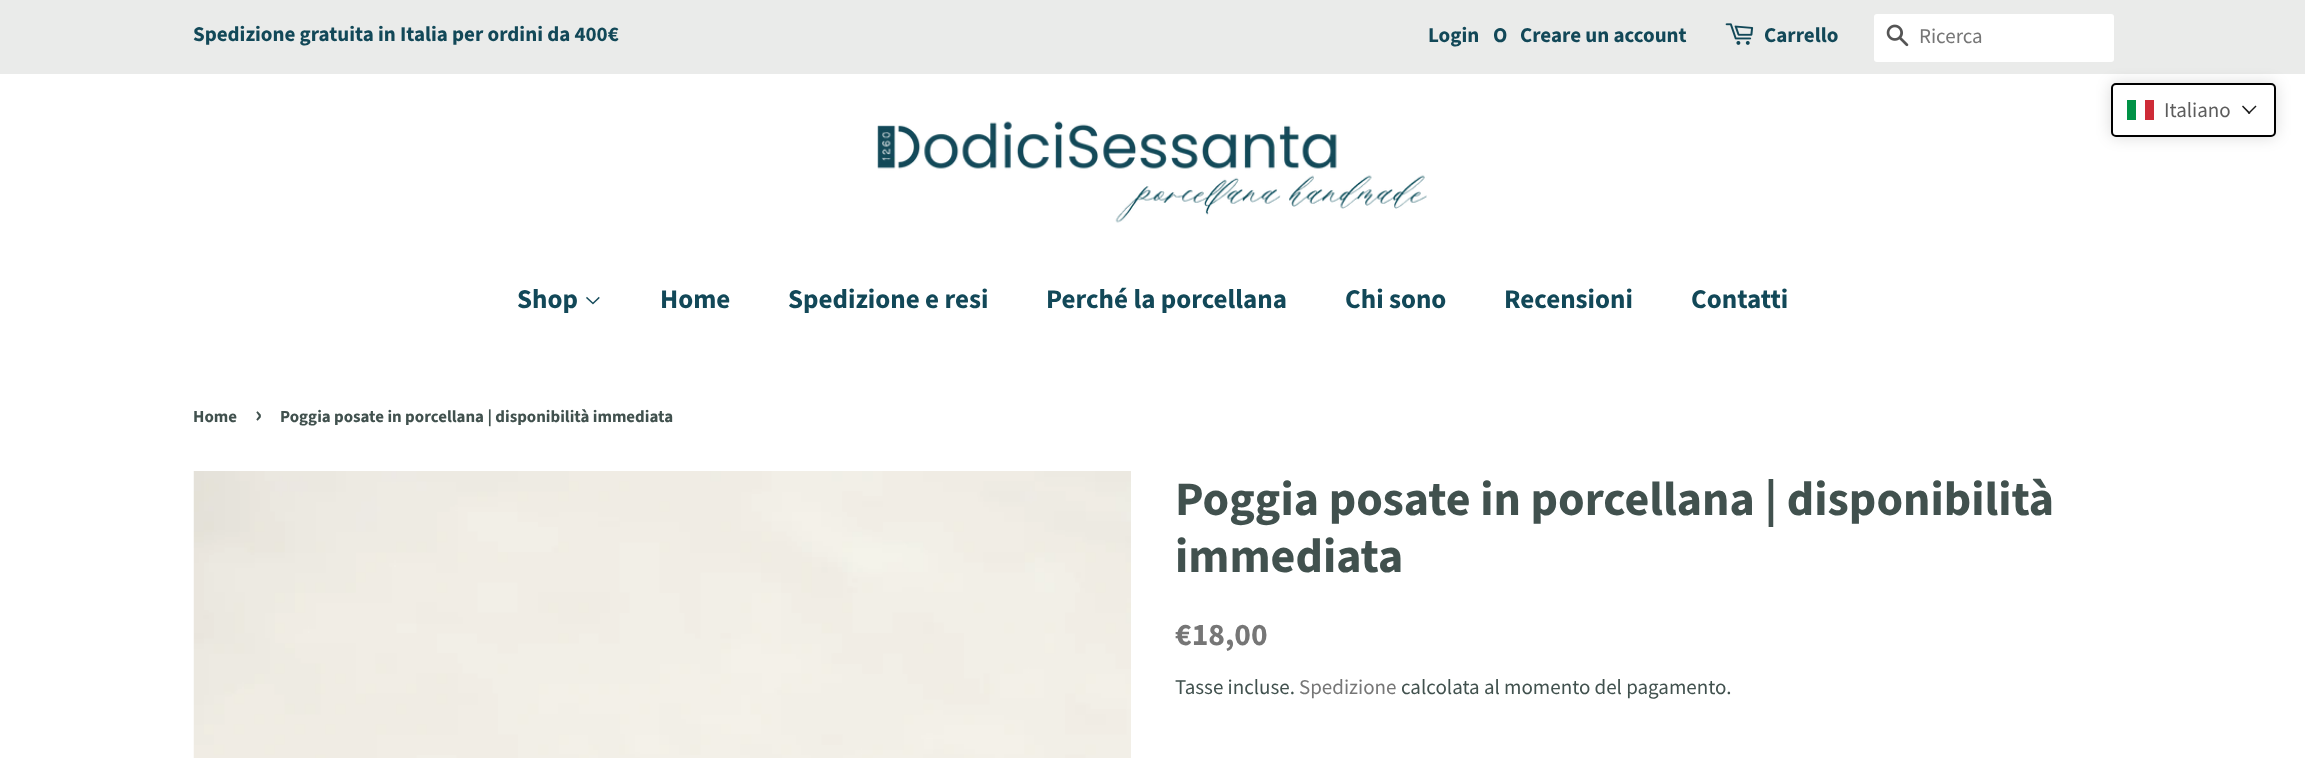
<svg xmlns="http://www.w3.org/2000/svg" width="2305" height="758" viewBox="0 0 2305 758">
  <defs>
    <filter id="blur1" x="-50%" y="-200%" width="200%" height="500%"><feGaussianBlur stdDeviation="7.5"/></filter>
  </defs>
  <rect width="100%" height="100%" fill="#ffffff"/>
  <rect x="0" y="0" width="2305" height="74" fill="#eaebea"/>
  <text x="193" y="41" font-family="Source Sans Pro" font-size="21" font-weight="bold" fill="#124858">Spedizione gratuita in Italia per ordini da 400€</text>
  <text x="1428" y="42" font-family="Source Sans Pro" font-size="21" font-weight="bold" fill="#124858">Login</text>
  <text x="1493" y="42" font-family="Source Sans Pro" font-size="21" font-weight="bold" fill="#124858">O</text>
  <text x="1520" y="42" font-family="Source Sans Pro" font-size="21" font-weight="bold" fill="#124858">Creare un account</text>
  <image x="1725" y="23" width="29" height="22" href="img1.png"/>
  <text x="1764" y="42" font-family="Source Sans Pro" font-size="21" font-weight="bold" fill="#124858">Carrello</text>
  <rect x="1874" y="14" width="240" height="48" rx="3" fill="#ffffff"/>
  <image x="1886" y="24" width="23" height="23" href="img2.png"/>
  <text x="1919" y="43" font-family="Source Sans Pro" font-size="21" fill="#767676">Ricerca</text>
  <image x="877" y="121" width="550" height="102" href="img3.png"/>
  <text x="517" y="308" font-family="Source Sans Pro" font-size="27" font-weight="bold" fill="#124858">Shop</text>
  <image x="586" y="296" width="14" height="9" href="img4.png"/>
  <text x="660" y="308" font-family="Source Sans Pro" font-size="27" font-weight="bold" fill="#124858">Home</text>
  <text x="788" y="308" font-family="Source Sans Pro" font-size="27" font-weight="bold" fill="#124858">Spedizione e resi</text>
  <text x="1046" y="308" font-family="Source Sans Pro" font-size="27" font-weight="bold" fill="#124858">Perché la porcellana</text>
  <text x="1345" y="308" font-family="Source Sans Pro" font-size="27" font-weight="bold" fill="#124858">Chi sono</text>
  <text x="1504" y="308" font-family="Source Sans Pro" font-size="27" font-weight="bold" fill="#124858">Recensioni</text>
  <text x="1691" y="308" font-family="Source Sans Pro" font-size="27" font-weight="bold" fill="#124858">Contatti</text>
  <rect x="2111" y="83" width="165" height="54" rx="5" fill="#000000" fill-opacity="0.15" filter="url(#blur1)"/>
  <rect x="2112" y="84" width="163" height="52" rx="4" fill="#ffffff" stroke="#000000" stroke-width="2"/>
  <rect x="2127" y="100" width="9" height="20" fill="#009246"/>
  <rect x="2145" y="100" width="9" height="20" fill="#ce2b37"/>
  <text x="2164" y="117" font-family="Source Sans Pro" font-size="21" fill="#5c5c5c">Italiano</text>
  <path d="M2255.5 105.5L2256.5 106.5L2249 114L2248 113Z" fill="#1a1a1a"/>
  <path d="M2243 105.5L2250.5 113L2249 114L2242 106.5Z" fill="#1a1a1a"/>
  <text x="193" y="422" font-family="Source Sans Pro" font-size="16.9" font-weight="bold" fill="#41514e">Home</text>
  <text x="255" y="422" font-family="Source Sans Pro" font-size="24" font-weight="bold" fill="#41514e">›</text>
  <text x="280" y="422" font-family="Source Sans Pro" font-size="16.9" font-weight="bold" fill="#41514e">Poggia posate in porcellana | disponibilità immediata</text>
  <image x="193" y="471" width="938" height="287" href="img5.png"/>
  <text x="1175" y="515" font-family="Source Sans Pro" font-size="48" font-weight="bold" fill="#41514e">Poggia posate in porcellana | disponibilità</text>
  <text x="1175" y="572" font-family="Source Sans Pro" font-size="48" font-weight="bold" fill="#41514e">immediata</text>
  <text x="1175" y="645" font-family="Source Sans Pro" font-size="31.5" font-weight="bold" fill="#767676">€18,00</text>
  <text x="1175" y="694" font-family="Source Sans Pro" font-size="21" fill="#41514e">Tasse incluse.</text>
  <text x="1299" y="694" font-family="Source Sans Pro" font-size="21" fill="#767676">Spedizione</text>
  <text x="1401" y="694" font-family="Source Sans Pro" font-size="21" fill="#41514e">calcolata al momento del pagamento.</text>
</svg>
